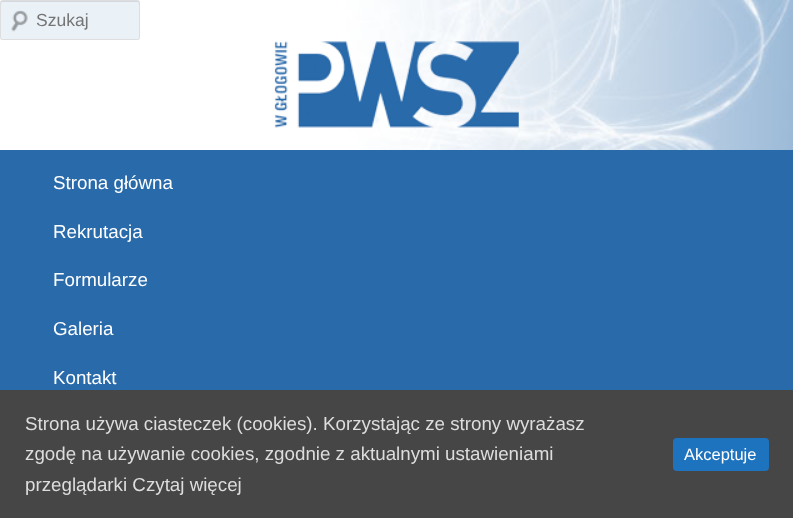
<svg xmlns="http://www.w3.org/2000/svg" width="793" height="518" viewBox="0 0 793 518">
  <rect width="100%" height="100%" fill="#ffffff"/>
  <image x="0" y="0" width="793" height="150" href="img1.png"/>
  <rect x="0" y="0" width="140" height="40" rx="2.5" fill="#eaf1f7"/>
  <image x="11" y="10" width="17" height="22" href="img2.png"/>
  <path d="M2 2H138L139 4C139 3 139 2 138 1H2C1 1 1 3 1 4Z" fill="#d3d9de"/>
  <rect x="0.5" y="0.5" width="139" height="39" rx="2" fill="none" stroke="#dddddd"/>
  <text x="36" y="26" font-family="Liberation Sans" font-size="17.5" fill="#757575">Szukaj</text>
  <image x="274" y="41" width="245" height="87" href="img3.png"/>
  <rect x="0" y="150" width="793" height="240" fill="#296aaa"/>
  <text x="53" y="189" font-family="Liberation Sans" font-size="18.75" fill="#ffffff">Strona główna</text>
  <text x="53" y="238" font-family="Liberation Sans" font-size="18.75" fill="#ffffff">Rekrutacja</text>
  <text x="53" y="286" font-family="Liberation Sans" font-size="18.75" fill="#ffffff">Formularze</text>
  <text x="53" y="335" font-family="Liberation Sans" font-size="18.75" fill="#ffffff">Galeria</text>
  <text x="53" y="384" font-family="Liberation Sans" font-size="18.75" fill="#ffffff">Kontakt</text>
  <rect x="0" y="390" width="793" height="128" fill="#464646"/>
  <text x="25" y="430" font-family="Liberation Sans" font-size="18.75" fill="#dddddd">Strona używa ciasteczek (cookies). Korzystając ze strony wyrażasz</text>
  <text x="25" y="460" font-family="Liberation Sans" font-size="18.75" fill="#dddddd">zgodę na używanie cookies, zgodnie z aktualnymi ustawieniami</text>
  <text x="25" y="491" font-family="Liberation Sans" font-size="18.75" fill="#dddddd">przeglądarki Czytaj więcej</text>
  <rect x="673" y="438" width="96" height="33" rx="4" fill="#1e73be"/>
  <text x="684" y="460" font-family="Liberation Sans" font-size="16.5" fill="#ffffff">Akceptuje</text>
</svg>
